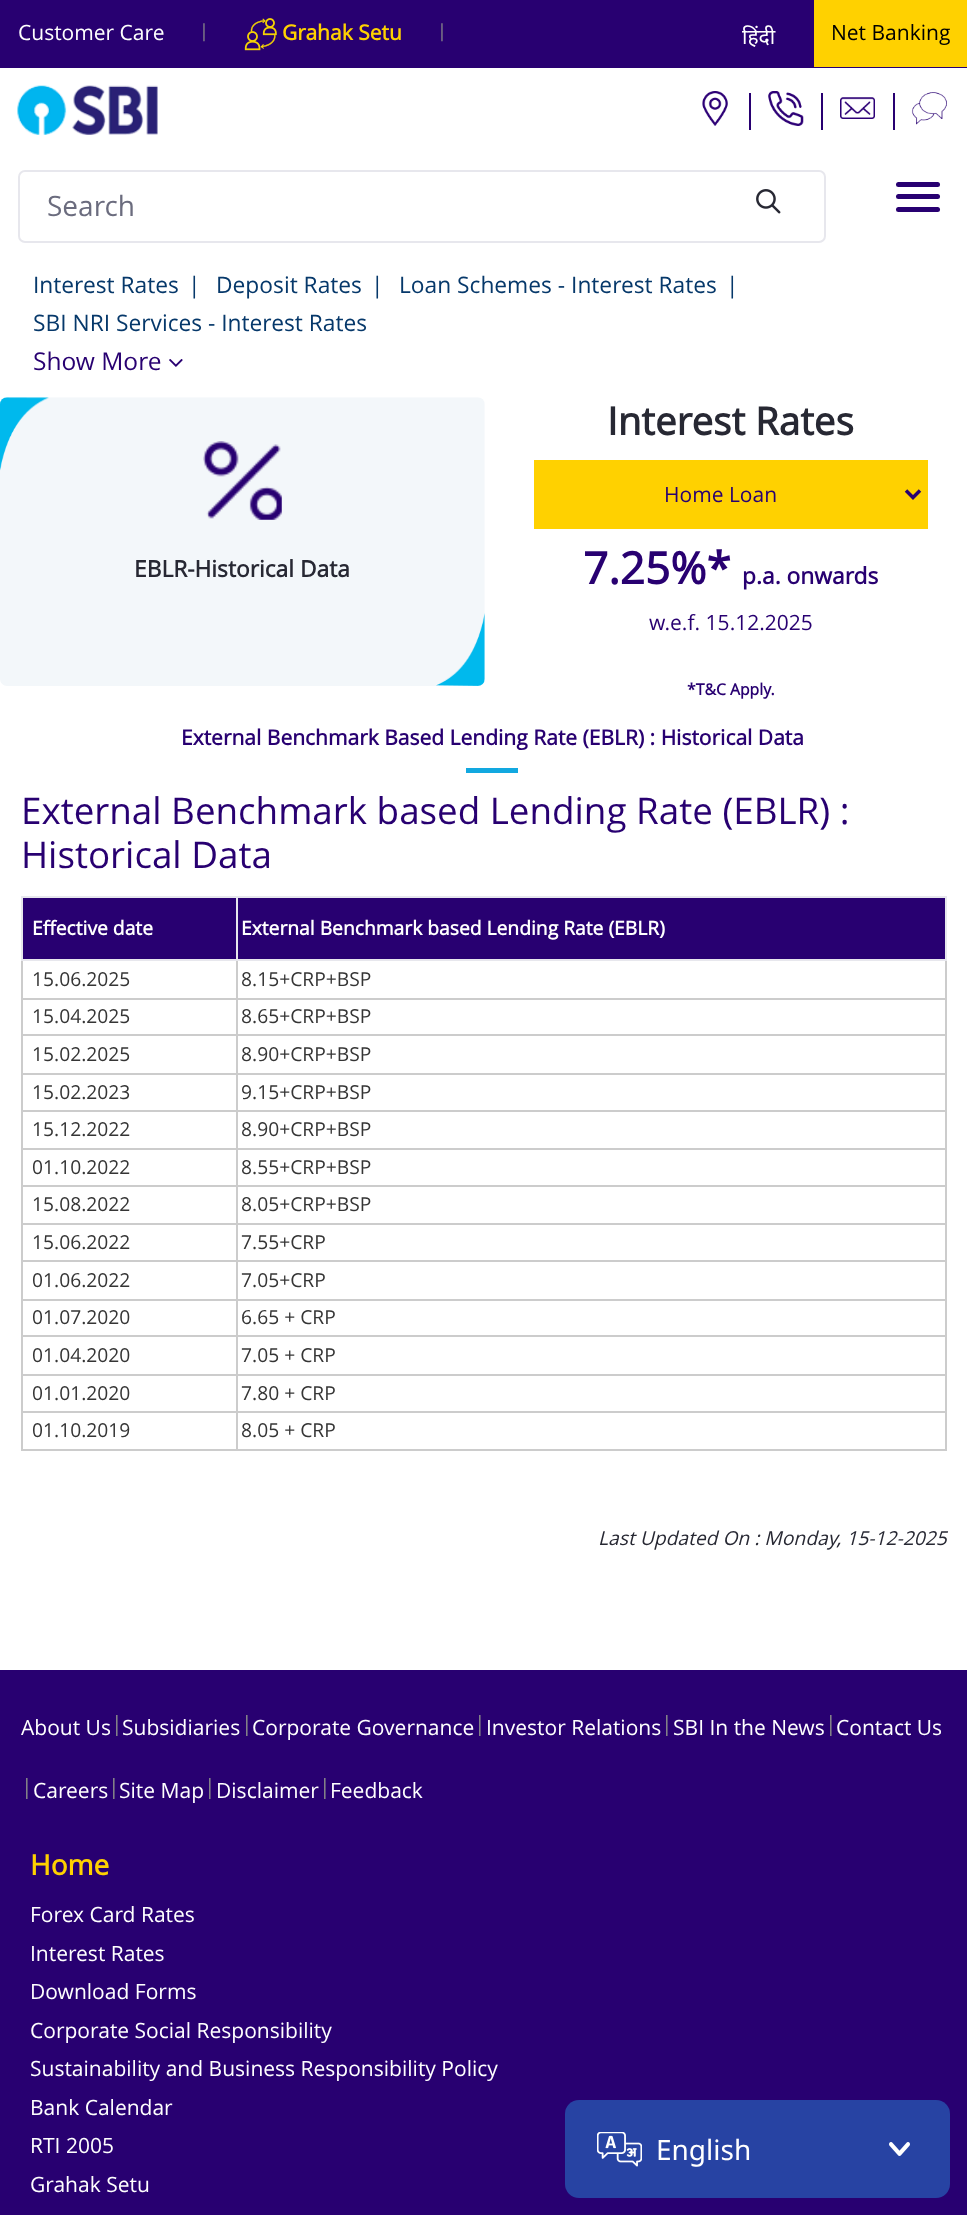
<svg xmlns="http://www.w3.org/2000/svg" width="967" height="2215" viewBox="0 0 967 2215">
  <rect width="100%" height="100%" fill="#ffffff"/>
  <rect x="0" y="0" width="967" height="68" fill="#280071"/>
  <text x="18" y="40" font-family="Open Sans" font-size="21" fill="#ffffff">Customer Care</text>
  <text x="199" y="37" font-family="Open Sans" font-size="18" fill="#898989">|</text>
  <image x="244" y="18" width="33" height="33" href="img1.png"/>
  <text x="282" y="40" font-family="Open Sans" font-size="21" font-weight="bold" fill="#ffd100">Grahak Setu</text>
  <text x="437" y="37" font-family="Open Sans" font-size="18" fill="#898989">|</text>
  <text x="742" y="44" font-family="Noto Sans" font-size="21" fill="#ffffff">हिंदी</text>
  <rect x="814" y="0" width="153" height="67" fill="#ffd100"/>
  <text x="831" y="40" font-family="Open Sans" font-size="21" fill="#000000">Net Banking</text>
  <image x="17" y="85" width="141" height="50" href="img2.png"/>
  <image x="702" y="91" width="26" height="35" href="img3.png"/>
  <rect x="749" y="93" width="2" height="37" fill="#280071"/>
  <image x="768" y="91" width="36" height="35" href="img4.png"/>
  <rect x="821" y="93" width="2" height="37" fill="#280071"/>
  <image x="840" y="97" width="35" height="22" href="img5.png"/>
  <rect x="893" y="93" width="2" height="37" fill="#280071"/>
  <image x="911" y="92" width="36" height="33" href="img6.png"/>
  <rect x="19" y="171" width="806" height="71" rx="6" fill="none" stroke="#e7e7ed" stroke-width="2"/>
  <text x="47" y="216" font-family="Open Sans" font-size="28" fill="#6b6c7e">Search</text>
  <image x="756" y="189" width="25" height="25" href="img7.png"/>
  <rect x="896" y="182" width="44" height="5" rx="2.5" fill="#280071"/>
  <rect x="896" y="194" width="44" height="5" rx="2.5" fill="#280071"/>
  <rect x="896" y="207" width="44" height="5" rx="2.5" fill="#280071"/>
  <text x="33" y="293" font-family="Open Sans" font-size="22.75" fill="#06386a">Interest Rates</text>
  <text x="188" y="293" font-family="Open Sans" font-size="22.75" fill="#06386a">|</text>
  <text x="216" y="293" font-family="Open Sans" font-size="22.75" fill="#06386a">Deposit Rates</text>
  <text x="371" y="293" font-family="Open Sans" font-size="22.75" fill="#06386a">|</text>
  <text x="399" y="293" font-family="Open Sans" font-size="22.75" fill="#06386a">Loan Schemes - Interest Rates</text>
  <text x="726" y="293" font-family="Open Sans" font-size="22.75" fill="#06386a">|</text>
  <text x="33" y="331" font-family="Open Sans" font-size="22.75" fill="#06386a">SBI NRI Services - Interest Rates</text>
  <text x="33" y="370" font-family="Open Sans" font-size="24.5" fill="#280071">Show More</text>
  <image x="169" y="359" width="14" height="8" href="img8.png"/>
  <image x="0" y="397" width="485" height="289" href="img9.png"/>
  <image x="203" y="441" width="79" height="79" href="img10.png"/>
  <text x="134" y="577" font-family="Open Sans" font-size="22.75" font-weight="bold" fill="#272833">EBLR-Historical Data</text>
  <text x="607" y="435" font-family="Open Sans" font-size="38.5" font-weight="bold" fill="#272833">Interest Rates</text>
  <rect x="534" y="460" width="394" height="69" fill="#ffd100"/>
  <path d="M906 490.5L913 497.5L920 490.5" fill="none" stroke="#280071" stroke-width="3.5"/>
  <text x="664" y="502" font-family="Open Sans" font-size="21" fill="#280071">Home Loan</text>
  <text x="583" y="584" font-family="Open Sans" font-size="44" font-weight="bold" fill="#280071">7.25%*</text>
  <text x="742" y="584" font-family="Open Sans" font-size="22.75" font-weight="bold" fill="#280071">p.a. onwards</text>
  <text x="649" y="630" font-family="Open Sans" font-size="21" fill="#280071">w.e.f. 15.12.2025</text>
  <text x="687" y="695" font-family="Open Sans" font-size="15.75" font-weight="bold" fill="#280071">*T&amp;C Apply.</text>
  <text x="181" y="745" font-family="Open Sans" font-size="21" font-weight="bold" fill="#280071">External Benchmark Based Lending Rate (EBLR) : Historical Data</text>
  <rect x="466" y="768" width="52" height="5" fill="#12a8e0"/>
  <text x="21" y="824" font-family="Open Sans" font-size="36.75" fill="#280071">External Benchmark based Lending Rate (EBLR) :</text>
  <text x="21" y="868" font-family="Open Sans" font-size="36.75" fill="#280071">Historical Data</text>
  <rect x="945" y="961" width="2" height="490" fill="#cccccc"/>
  <rect x="21" y="1449" width="926" height="2" fill="#cccccc"/>
  <rect x="21" y="961" width="2" height="490" fill="#cccccc"/>
  <rect x="23" y="898" width="213" height="61" fill="#280071"/>
  <rect x="236" y="896" width="711" height="2" fill="#e7e7ed"/>
  <rect x="945" y="896" width="2" height="65" fill="#e7e7ed"/>
  <rect x="236" y="998" width="711" height="2" fill="#cccccc"/>
  <rect x="236" y="1034" width="711" height="2" fill="#cccccc"/>
  <rect x="236" y="1073" width="711" height="2" fill="#cccccc"/>
  <rect x="236" y="1110" width="711" height="2" fill="#cccccc"/>
  <rect x="236" y="1148" width="711" height="2" fill="#cccccc"/>
  <rect x="236" y="1185" width="711" height="2" fill="#cccccc"/>
  <rect x="236" y="1223" width="711" height="2" fill="#cccccc"/>
  <rect x="236" y="1260" width="711" height="2" fill="#cccccc"/>
  <rect x="236" y="1299" width="711" height="2" fill="#cccccc"/>
  <rect x="236" y="1335" width="711" height="2" fill="#cccccc"/>
  <rect x="236" y="1374" width="711" height="2" fill="#cccccc"/>
  <rect x="236" y="1411" width="711" height="2" fill="#cccccc"/>
  <rect x="236" y="1411" width="2" height="40" fill="#cccccc"/>
  <rect x="21" y="1411" width="217" height="2" fill="#cccccc"/>
  <rect x="236" y="1374" width="2" height="38" fill="#cccccc"/>
  <rect x="21" y="1374" width="217" height="2" fill="#cccccc"/>
  <rect x="236" y="1335" width="2" height="41" fill="#cccccc"/>
  <rect x="21" y="1335" width="217" height="2" fill="#cccccc"/>
  <rect x="236" y="1299" width="2" height="38" fill="#cccccc"/>
  <rect x="21" y="1299" width="217" height="2" fill="#cccccc"/>
  <rect x="236" y="1260" width="2" height="40" fill="#cccccc"/>
  <rect x="21" y="1260" width="217" height="2" fill="#cccccc"/>
  <rect x="236" y="1223" width="2" height="39" fill="#cccccc"/>
  <rect x="21" y="1223" width="217" height="2" fill="#cccccc"/>
  <rect x="236" y="1185" width="2" height="40" fill="#cccccc"/>
  <rect x="21" y="1185" width="217" height="2" fill="#cccccc"/>
  <rect x="236" y="1148" width="2" height="39" fill="#cccccc"/>
  <rect x="21" y="1148" width="217" height="2" fill="#cccccc"/>
  <rect x="236" y="1110" width="2" height="40" fill="#cccccc"/>
  <rect x="21" y="1110" width="217" height="2" fill="#cccccc"/>
  <rect x="236" y="1073" width="2" height="38" fill="#cccccc"/>
  <rect x="21" y="1073" width="217" height="2" fill="#cccccc"/>
  <rect x="236" y="1034" width="2" height="41" fill="#cccccc"/>
  <rect x="21" y="1034" width="217" height="2" fill="#cccccc"/>
  <rect x="236" y="998" width="2" height="38" fill="#cccccc"/>
  <rect x="21" y="998" width="217" height="2" fill="#cccccc"/>
  <rect x="236" y="959" width="2" height="40" fill="#cccccc"/>
  <rect x="236" y="959" width="711" height="2" fill="#e7e7ed"/>
  <rect x="236" y="896" width="2" height="65" fill="#e7e7ed"/>
  <rect x="21" y="896" width="217" height="2" fill="#e7e7ed"/>
  <rect x="21" y="959" width="217" height="2" fill="#e7e7ed"/>
  <rect x="21" y="896" width="2" height="65" fill="#e7e7ed"/>
  <text x="32" y="935" font-family="Open Sans" font-size="19.25" font-weight="bold" fill="#ffffff">Effective date</text>
  <rect x="238" y="898" width="707" height="61" fill="#280071"/>
  <text x="241" y="935" font-family="Open Sans" font-size="19.25" font-weight="bold" fill="#ffffff">External Benchmark based Lending Rate (EBLR)</text>
  <text x="32" y="986" font-family="Open Sans" font-size="19.25" fill="#353535">15.06.2025</text>
  <text x="241" y="986" font-family="Open Sans" font-size="19.25" fill="#353535">8.15+CRP+BSP</text>
  <text x="32" y="1023" font-family="Open Sans" font-size="19.25" fill="#353535">15.04.2025</text>
  <text x="241" y="1023" font-family="Open Sans" font-size="19.25" fill="#353535">8.65+CRP+BSP</text>
  <text x="32" y="1061" font-family="Open Sans" font-size="19.25" fill="#353535">15.02.2025</text>
  <text x="241" y="1061" font-family="Open Sans" font-size="19.25" fill="#353535">8.90+CRP+BSP</text>
  <text x="32" y="1099" font-family="Open Sans" font-size="19.25" fill="#353535">15.02.2023</text>
  <text x="241" y="1099" font-family="Open Sans" font-size="19.25" fill="#353535">9.15+CRP+BSP</text>
  <text x="32" y="1136" font-family="Open Sans" font-size="19.25" fill="#353535">15.12.2022</text>
  <text x="241" y="1136" font-family="Open Sans" font-size="19.25" fill="#353535">8.90+CRP+BSP</text>
  <text x="32" y="1174" font-family="Open Sans" font-size="19.25" fill="#353535">01.10.2022</text>
  <text x="241" y="1174" font-family="Open Sans" font-size="19.25" fill="#353535">8.55+CRP+BSP</text>
  <text x="32" y="1211" font-family="Open Sans" font-size="19.25" fill="#353535">15.08.2022</text>
  <text x="241" y="1211" font-family="Open Sans" font-size="19.25" fill="#353535">8.05+CRP+BSP</text>
  <text x="32" y="1249" font-family="Open Sans" font-size="19.25" fill="#353535">15.06.2022</text>
  <text x="241" y="1249" font-family="Open Sans" font-size="19.25" fill="#353535">7.55+CRP</text>
  <text x="32" y="1287" font-family="Open Sans" font-size="19.25" fill="#353535">01.06.2022</text>
  <text x="241" y="1287" font-family="Open Sans" font-size="19.25" fill="#353535">7.05+CRP</text>
  <text x="32" y="1324" font-family="Open Sans" font-size="19.25" fill="#353535">01.07.2020</text>
  <text x="241" y="1324" font-family="Open Sans" font-size="19.25" fill="#353535">6.65 + CRP</text>
  <text x="32" y="1362" font-family="Open Sans" font-size="19.25" fill="#353535">01.04.2020</text>
  <text x="241" y="1362" font-family="Open Sans" font-size="19.25" fill="#353535">7.05 + CRP</text>
  <text x="32" y="1400" font-family="Open Sans" font-size="19.25" fill="#353535">01.01.2020</text>
  <text x="241" y="1400" font-family="Open Sans" font-size="19.25" fill="#353535">7.80 + CRP</text>
  <text x="32" y="1437" font-family="Open Sans" font-size="19.25" fill="#353535">01.10.2019</text>
  <text x="241" y="1437" font-family="Open Sans" font-size="19.25" fill="#353535">8.05 + CRP</text>
  <text x="598" y="1545" font-family="Open Sans" font-size="19.25" font-style="italic" fill="#272833">Last Updated On : Monday, 15-12-2025</text>
  <rect x="0" y="1670" width="967" height="545" fill="#280071"/>
  <text x="21" y="1735" font-family="Open Sans" font-size="21" fill="#ffffff">About Us</text>
  <text x="111" y="1731" font-family="Open Sans" font-size="21" fill="#898989">|</text>
  <text x="122" y="1735" font-family="Open Sans" font-size="21" fill="#ffffff">Subsidiaries</text>
  <text x="241" y="1731" font-family="Open Sans" font-size="21" fill="#898989">|</text>
  <text x="252" y="1735" font-family="Open Sans" font-size="21" fill="#ffffff">Corporate Governance</text>
  <text x="474" y="1731" font-family="Open Sans" font-size="21" fill="#898989">|</text>
  <text x="486" y="1735" font-family="Open Sans" font-size="21" fill="#ffffff">Investor Relations</text>
  <text x="661" y="1731" font-family="Open Sans" font-size="21" fill="#898989">|</text>
  <text x="673" y="1735" font-family="Open Sans" font-size="21" fill="#ffffff">SBI In the News</text>
  <text x="825" y="1731" font-family="Open Sans" font-size="21" fill="#898989">|</text>
  <text x="836" y="1735" font-family="Open Sans" font-size="21" fill="#ffffff">Contact Us</text>
  <text x="21" y="1794" font-family="Open Sans" font-size="21" fill="#898989">|</text>
  <text x="33" y="1798" font-family="Open Sans" font-size="21" fill="#ffffff">Careers</text>
  <text x="108" y="1794" font-family="Open Sans" font-size="21" fill="#898989">|</text>
  <text x="119" y="1798" font-family="Open Sans" font-size="21" fill="#ffffff">Site Map</text>
  <text x="204" y="1794" font-family="Open Sans" font-size="21" fill="#898989">|</text>
  <text x="216" y="1798" font-family="Open Sans" font-size="21" fill="#ffffff">Disclaimer</text>
  <text x="319" y="1794" font-family="Open Sans" font-size="21" fill="#898989">|</text>
  <text x="330" y="1798" font-family="Open Sans" font-size="21" fill="#ffffff">Feedback</text>
  <text x="30" y="1875" font-family="Open Sans" font-size="28" font-weight="bold" fill="#ffd100">Home</text>
  <text x="30" y="1922" font-family="Open Sans" font-size="21" fill="#ffffff">Forex Card Rates</text>
  <text x="30" y="1961" font-family="Open Sans" font-size="21" fill="#ffffff">Interest Rates</text>
  <text x="30" y="1999" font-family="Open Sans" font-size="21" fill="#ffffff">Download Forms</text>
  <text x="30" y="2038" font-family="Open Sans" font-size="21" fill="#ffffff">Corporate Social Responsibility</text>
  <text x="30" y="2076" font-family="Open Sans" font-size="21" fill="#ffffff">Sustainability and Business Responsibility Policy</text>
  <text x="30" y="2115" font-family="Open Sans" font-size="21" fill="#ffffff">Bank Calendar</text>
  <text x="30" y="2153" font-family="Open Sans" font-size="21" fill="#ffffff">RTI 2005</text>
  <text x="30" y="2192" font-family="Open Sans" font-size="21" fill="#ffffff">Grahak Setu</text>
  <rect x="565" y="2100" width="385" height="98" rx="14" fill="#2743a3"/>
  <image x="597" y="2132" width="45" height="35" href="img11.png"/>
  <text x="656" y="2160" font-family="'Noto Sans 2'" font-size="28" fill="#ffffff">English</text>
  <image x="889" y="2142" width="21" height="14" href="img12.png"/>
</svg>
